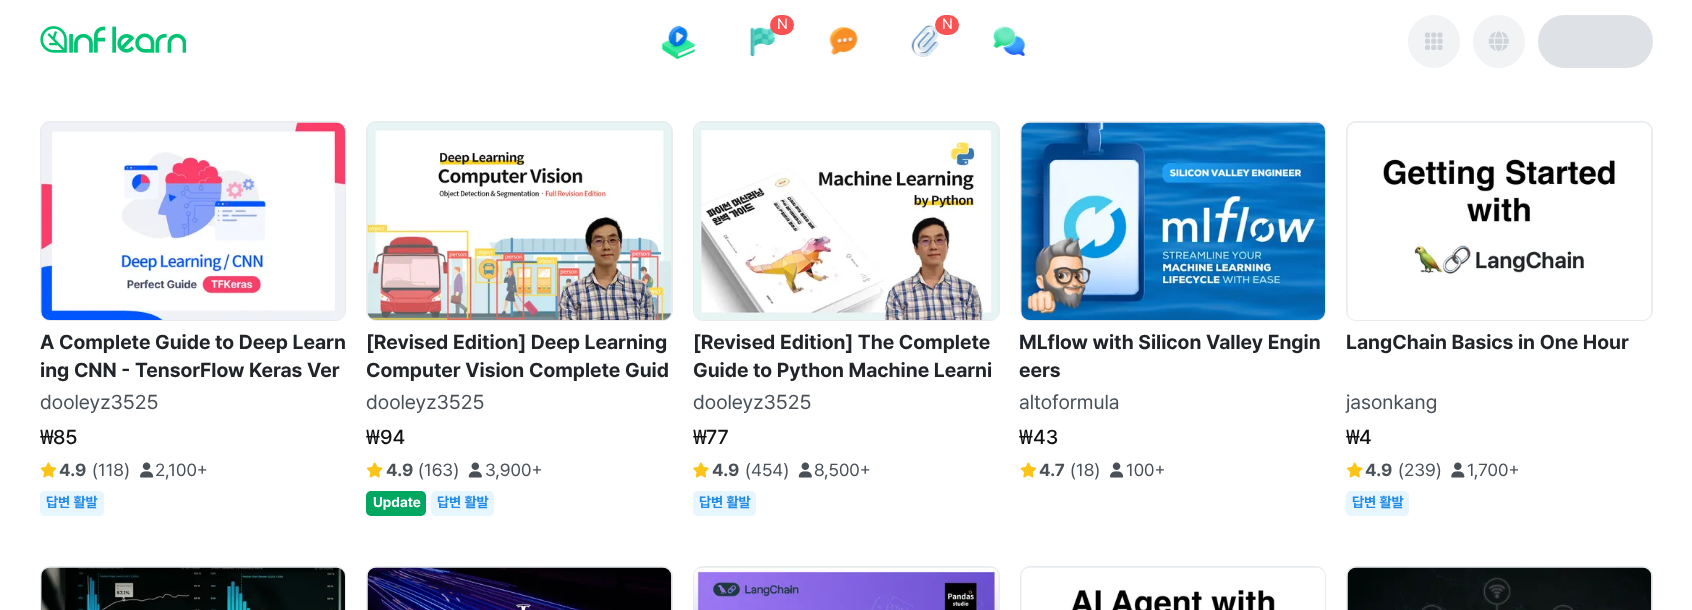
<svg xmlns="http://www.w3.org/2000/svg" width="1692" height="610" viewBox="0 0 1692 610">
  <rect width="100%" height="100%" fill="#ffffff"/>
  <image x="749" y="27" width="26" height="30" href="img1.png"/>
  <rect x="770" y="15" width="24" height="20" rx="10" fill="#fa5252"/>
  <text x="777" y="29" font-family="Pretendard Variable" font-size="15" fill="#ffffff">N</text>
  <image x="911" y="25" width="28" height="32" href="img2.png"/>
  <rect x="935" y="15" width="24" height="20" rx="10" fill="#fa5252"/>
  <text x="942" y="29" font-family="Pretendard Variable" font-size="15" fill="#ffffff">N</text>
  <image x="661" y="25" width="34" height="34" href="img3.png"/>
  <image x="829" y="26" width="29" height="29" href="img4.png"/>
  <image x="993" y="26" width="32" height="31" href="img5.png"/>
  <rect x="1408.5" y="15.5" width="51" height="52" rx="25.5" fill="#f1f3f5" stroke="#f1f3f5"/>
  <image x="1425" y="32" width="18" height="18" href="img6.png"/>
  <rect x="1473.5" y="15.5" width="51" height="52" rx="25.5" fill="#f1f3f5" stroke="#f1f3f5"/>
  <image x="1488" y="31" width="21" height="21" href="img7.png"/>
  <rect x="1538" y="15" width="115" height="53" rx="26.5" fill="#dee2e6"/>
  <image x="40" y="26" width="146" height="27" href="img8.png"/>
  <rect x="40.5" y="121.5" width="305" height="199" rx="9.5" fill="#e9ecef" stroke="#e9ecef"/>
  <image x="41" y="122" width="304" height="198" href="img9.png"/>
  <text x="40" y="349" font-family="Pretendard Variable" font-size="20" font-weight="bold" fill="#212529">A Complete Guide to Deep Learn</text>
  <text x="40" y="377" font-family="Pretendard Variable" font-size="20" font-weight="bold" fill="#212529">ing CNN - TensorFlow Keras Ver</text>
  <text x="40" y="409" font-family="Pretendard Variable" font-size="20" fill="#495057">dooleyz3525</text>
  <text x="40" y="444" font-family="Noto Sans" font-size="20" font-weight="500" fill="#101113">₩</text>
  <text x="53" y="444" font-family="Pretendard Variable" font-size="20" font-weight="500" fill="#101113">85</text>
  <image x="40" y="462" width="17" height="16" href="img10.png"/>
  <text x="59" y="476" font-family="Pretendard Variable" font-size="17.5" font-weight="bold" fill="#495057">4.9</text>
  <text x="92" y="476" font-family="Pretendard Variable" font-size="17.5" fill="#495057">(118)</text>
  <image x="140" y="462" width="14" height="16" href="img11.png"/>
  <text x="155" y="476" font-family="Pretendard Variable" font-size="17.5" fill="#495057">2,100+</text>
  <rect x="40" y="491" width="64" height="25" rx="5" fill="#e7f5ff"/>
  <text x="46" y="507" font-family="Pretendard Variable" font-size="14" font-weight="bold" fill="#228be6">답변 활발</text>
  <rect x="366.5" y="121.5" width="306" height="199" rx="9.5" fill="#e9ecef" stroke="#e9ecef"/>
  <image x="367" y="123" width="304" height="197" href="img12.png"/>
  <text x="366" y="349" font-family="Pretendard Variable" font-size="20" font-weight="bold" fill="#212529">[Revised Edition] Deep Learning</text>
  <text x="366" y="377" font-family="Pretendard Variable" font-size="20" font-weight="bold" fill="#212529">Computer Vision Complete Guid</text>
  <text x="366" y="409" font-family="Pretendard Variable" font-size="20" fill="#495057">dooleyz3525</text>
  <text x="366" y="444" font-family="Noto Sans" font-size="20" font-weight="500" fill="#101113">₩</text>
  <text x="380" y="444" font-family="Pretendard Variable" font-size="20" font-weight="500" fill="#101113">94</text>
  <image x="367" y="462" width="16" height="16" href="img13.png"/>
  <text x="386" y="476" font-family="Pretendard Variable" font-size="17.5" font-weight="bold" fill="#495057">4.9</text>
  <text x="418" y="476" font-family="Pretendard Variable" font-size="17.5" fill="#495057">(163)</text>
  <image x="468" y="462" width="14" height="16" href="img14.png"/>
  <text x="485" y="476" font-family="Pretendard Variable" font-size="17.5" fill="#495057">3,900+</text>
  <rect x="366" y="491" width="60" height="25" rx="5" fill="#00a760"/>
  <text x="373" y="507" font-family="Pretendard Variable" font-size="14" font-weight="bold" fill="#ffffff">Update</text>
  <rect x="431" y="491" width="63" height="25" rx="5" fill="#e7f5ff"/>
  <text x="437" y="507" font-family="Pretendard Variable" font-size="14" font-weight="bold" fill="#228be6">답변 활발</text>
  <rect x="693.5" y="121.5" width="306" height="199" rx="9.5" fill="#e9ecef" stroke="#e9ecef"/>
  <image x="694" y="123" width="305" height="197" href="img15.png"/>
  <text x="693" y="349" font-family="Pretendard Variable" font-size="20" font-weight="bold" fill="#212529">[Revised Edition] The Complete</text>
  <text x="693" y="377" font-family="Pretendard Variable" font-size="20" font-weight="bold" fill="#212529">Guide to Python Machine Learni</text>
  <text x="693" y="409" font-family="Pretendard Variable" font-size="20" fill="#495057">dooleyz3525</text>
  <text x="693" y="444" font-family="Noto Sans" font-size="20" font-weight="500" fill="#101113">₩</text>
  <text x="706" y="444" font-family="Pretendard Variable" font-size="20" font-weight="500" fill="#101113">77</text>
  <image x="693" y="462" width="16" height="16" href="img16.png"/>
  <text x="712" y="476" font-family="Pretendard Variable" font-size="17.5" font-weight="bold" fill="#495057">4.9</text>
  <text x="745" y="476" font-family="Pretendard Variable" font-size="17.5" fill="#495057">(454)</text>
  <image x="798" y="462" width="14" height="16" href="img14.png"/>
  <text x="814" y="476" font-family="Pretendard Variable" font-size="17.5" fill="#495057">8,500+</text>
  <rect x="693" y="491" width="63" height="25" rx="5" fill="#e7f5ff"/>
  <text x="699" y="507" font-family="Pretendard Variable" font-size="14" font-weight="bold" fill="#228be6">답변 활발</text>
  <rect x="1020.5" y="121.5" width="305" height="199" rx="9.5" fill="#e9ecef" stroke="#e9ecef"/>
  <image x="1021" y="122" width="304" height="198" href="img17.png"/>
  <text x="1019" y="349" font-family="Pretendard Variable" font-size="20" font-weight="bold" fill="#212529">MLflow with Silicon Valley Engin</text>
  <text x="1019" y="377" font-family="Pretendard Variable" font-size="20" font-weight="bold" fill="#212529">eers</text>
  <text x="1019" y="409" font-family="Pretendard Variable" font-size="20" fill="#495057">altoformula</text>
  <text x="1019" y="444" font-family="Noto Sans" font-size="20" font-weight="500" fill="#101113">₩</text>
  <text x="1033" y="444" font-family="Pretendard Variable" font-size="20" font-weight="500" fill="#101113">43</text>
  <image x="1020" y="462" width="17" height="16" href="img10.png"/>
  <text x="1039" y="476" font-family="Pretendard Variable" font-size="17.5" font-weight="bold" fill="#495057">4.7</text>
  <text x="1070" y="476" font-family="Pretendard Variable" font-size="17.5" fill="#495057">(18)</text>
  <image x="1110" y="462" width="14" height="16" href="img11.png"/>
  <text x="1126" y="476" font-family="Pretendard Variable" font-size="17.5" fill="#495057">100+</text>
  <rect x="1346.5" y="121.5" width="306" height="199" rx="9.5" fill="#e9ecef" stroke="#e9ecef"/>
  <image x="1347" y="122" width="304" height="198" href="img18.png"/>
  <text x="1346" y="349" font-family="Pretendard Variable" font-size="20" font-weight="bold" fill="#212529">LangChain Basics in One Hour</text>
  <text x="1346" y="409" font-family="Pretendard Variable" font-size="20" fill="#495057">jasonkang</text>
  <text x="1346" y="444" font-family="Noto Sans" font-size="20" font-weight="500" fill="#101113">₩</text>
  <text x="1359" y="444" font-family="Pretendard Variable" font-size="20" font-weight="500" fill="#101113">4</text>
  <image x="1347" y="462" width="16" height="16" href="img13.png"/>
  <text x="1365" y="476" font-family="Pretendard Variable" font-size="17.5" font-weight="bold" fill="#495057">4.9</text>
  <text x="1398" y="476" font-family="Pretendard Variable" font-size="17.5" fill="#495057">(239)</text>
  <image x="1451" y="462" width="14" height="16" href="img19.png"/>
  <text x="1467" y="476" font-family="Pretendard Variable" font-size="17.5" fill="#495057">1,700+</text>
  <rect x="1346" y="491" width="63" height="25" rx="5" fill="#e7f5ff"/>
  <text x="1352" y="507" font-family="Pretendard Variable" font-size="14" font-weight="bold" fill="#228be6">답변 활발</text>
  <rect x="40.5" y="566.5" width="305" height="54" rx="9.5" fill="#e9ecef" stroke="#e9ecef"/>
  <image x="41" y="567" width="304" height="43" href="img20.png"/>
  <rect x="366.5" y="566.5" width="306" height="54" rx="9.5" fill="#e9ecef" stroke="#e9ecef"/>
  <image x="367" y="567" width="305" height="43" href="img21.png"/>
  <rect x="693.5" y="566.5" width="306" height="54" rx="9.5" fill="#e9ecef" stroke="#e9ecef"/>
  <image x="694" y="567" width="305" height="43" href="img22.png"/>
  <rect x="1020.5" y="566.5" width="305" height="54" rx="9.5" fill="#e9ecef" stroke="#e9ecef"/>
  <image x="1021" y="567" width="304" height="43" href="img23.png"/>
  <rect x="1346.5" y="566.5" width="306" height="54" rx="9.5" fill="#e9ecef" stroke="#e9ecef"/>
  <image x="1347" y="567" width="305" height="43" href="img24.png"/>
</svg>
